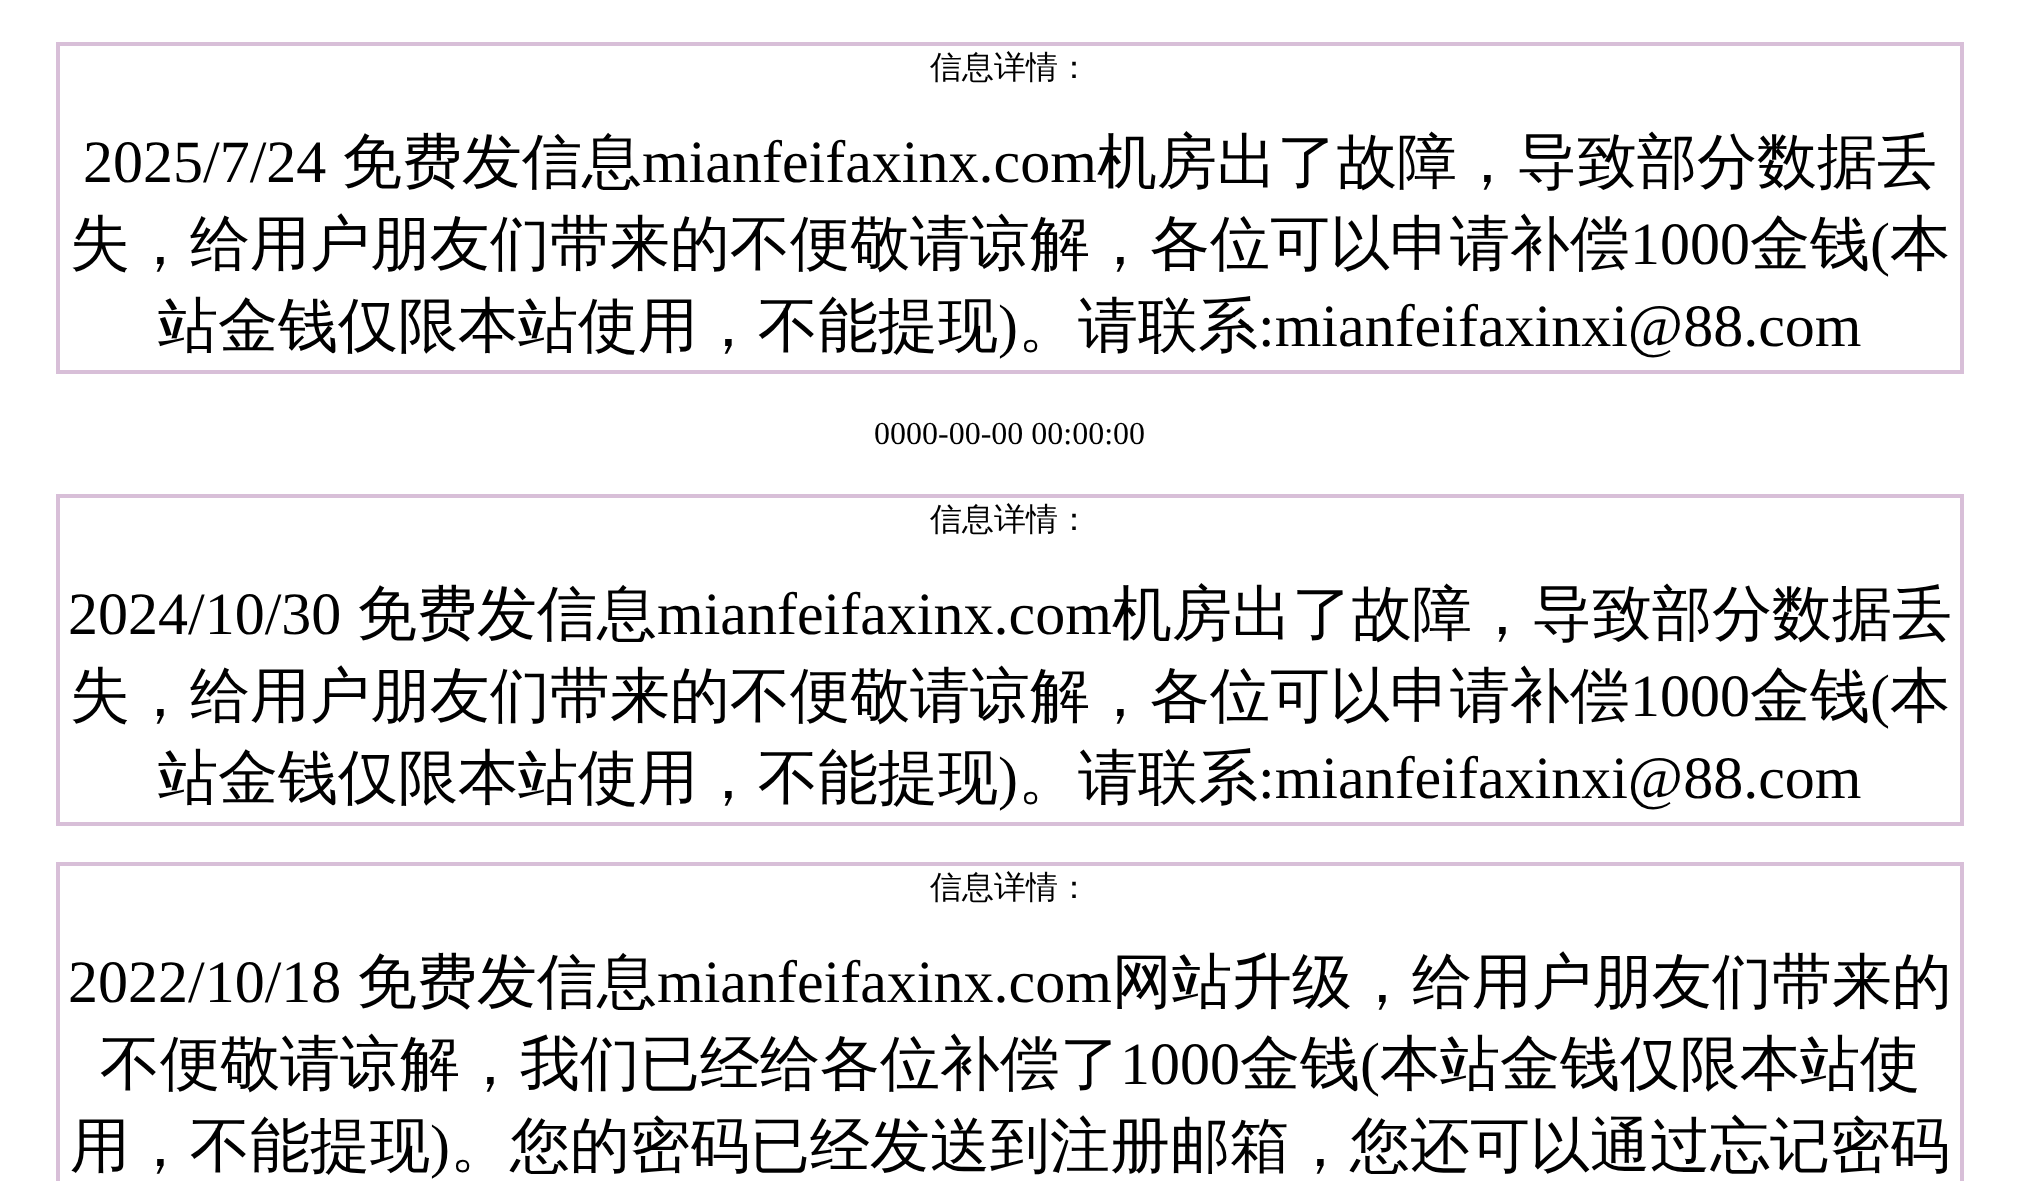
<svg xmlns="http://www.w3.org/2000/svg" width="2019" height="1181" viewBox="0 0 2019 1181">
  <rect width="100%" height="100%" fill="#ffffff"/>
  <rect x="56" y="42" width="1908" height="332" fill="#d8bfd8"/>
  <rect x="60" y="46" width="1900" height="324" fill="#ffffff"/>
  <text x="930" y="78" font-family="WenQuanYi Zen Hei" font-size="32" font-weight="500" fill="#000000">信息详情：</text>
  <text x="83" y="182" font-family="Liberation Serif" font-size="60" fill="#000000">2025/7/24</text>
  <text x="342" y="182" font-family="WenQuanYi Zen Hei" font-size="60" font-weight="500" fill="#000000">免费发信息</text>
  <text x="642" y="182" font-family="Liberation Serif" font-size="60" fill="#000000">mianfeifaxinx.com</text>
  <text x="1097" y="182" font-family="WenQuanYi Zen Hei" font-size="60" font-weight="500" fill="#000000">机房出了故障，导致部分数据丢</text>
  <text x="70" y="264" font-family="WenQuanYi Zen Hei" font-size="60" font-weight="500" fill="#000000">失，给用户朋友们带来的不便敬请谅解，各位可以申请补偿</text>
  <text x="1630" y="264" font-family="Liberation Serif" font-size="60" fill="#000000">1000</text>
  <text x="1750" y="264" font-family="WenQuanYi Zen Hei" font-size="60" font-weight="500" fill="#000000">金钱</text>
  <text x="1870" y="264" font-family="Liberation Serif" font-size="60" fill="#000000">(</text>
  <text x="1890" y="264" font-family="WenQuanYi Zen Hei" font-size="60" font-weight="500" fill="#000000">本</text>
  <text x="158" y="346" font-family="WenQuanYi Zen Hei" font-size="60" font-weight="500" fill="#000000">站金钱仅限本站使用，不能提现</text>
  <text x="998" y="346" font-family="Liberation Serif" font-size="60" fill="#000000">)</text>
  <text x="1018" y="346" font-family="WenQuanYi Zen Hei" font-size="60" font-weight="500" fill="#000000">。请联系</text>
  <text x="1258" y="346" font-family="Liberation Serif" font-size="60" fill="#000000">:mianfeifaxinxi@88.com</text>
  <text x="874" y="444" font-family="Liberation Serif" font-size="32" fill="#000000">0000-00-00 00:00:00</text>
  <rect x="56" y="494" width="1908" height="332" fill="#d8bfd8"/>
  <rect x="60" y="498" width="1900" height="324" fill="#ffffff"/>
  <text x="930" y="530" font-family="WenQuanYi Zen Hei" font-size="32" font-weight="500" fill="#000000">信息详情：</text>
  <text x="68" y="634" font-family="Liberation Serif" font-size="60" fill="#000000">2024/10/30</text>
  <text x="357" y="634" font-family="WenQuanYi Zen Hei" font-size="60" font-weight="500" fill="#000000">免费发信息</text>
  <text x="657" y="634" font-family="Liberation Serif" font-size="60" fill="#000000">mianfeifaxinx.com</text>
  <text x="1112" y="634" font-family="WenQuanYi Zen Hei" font-size="60" font-weight="500" fill="#000000">机房出了故障，导致部分数据丢</text>
  <text x="70" y="716" font-family="WenQuanYi Zen Hei" font-size="60" font-weight="500" fill="#000000">失，给用户朋友们带来的不便敬请谅解，各位可以申请补偿</text>
  <text x="1630" y="716" font-family="Liberation Serif" font-size="60" fill="#000000">1000</text>
  <text x="1750" y="716" font-family="WenQuanYi Zen Hei" font-size="60" font-weight="500" fill="#000000">金钱</text>
  <text x="1870" y="716" font-family="Liberation Serif" font-size="60" fill="#000000">(</text>
  <text x="1890" y="716" font-family="WenQuanYi Zen Hei" font-size="60" font-weight="500" fill="#000000">本</text>
  <text x="158" y="798" font-family="WenQuanYi Zen Hei" font-size="60" font-weight="500" fill="#000000">站金钱仅限本站使用，不能提现</text>
  <text x="998" y="798" font-family="Liberation Serif" font-size="60" fill="#000000">)</text>
  <text x="1018" y="798" font-family="WenQuanYi Zen Hei" font-size="60" font-weight="500" fill="#000000">。请联系</text>
  <text x="1258" y="798" font-family="Liberation Serif" font-size="60" fill="#000000">:mianfeifaxinxi@88.com</text>
  <rect x="56" y="862" width="1908" height="319" fill="#d8bfd8"/>
  <rect x="60" y="866" width="1900" height="315" fill="#ffffff"/>
  <text x="930" y="898" font-family="WenQuanYi Zen Hei" font-size="32" font-weight="500" fill="#000000">信息详情：</text>
  <text x="68" y="1002" font-family="Liberation Serif" font-size="60" fill="#000000">2022/10/18</text>
  <text x="357" y="1002" font-family="WenQuanYi Zen Hei" font-size="60" font-weight="500" fill="#000000">免费发信息</text>
  <text x="657" y="1002" font-family="Liberation Serif" font-size="60" fill="#000000">mianfeifaxinx.com</text>
  <text x="1112" y="1002" font-family="WenQuanYi Zen Hei" font-size="60" font-weight="500" fill="#000000">网站升级，给用户朋友们带来的</text>
  <text x="100" y="1084" font-family="WenQuanYi Zen Hei" font-size="60" font-weight="500" fill="#000000">不便敬请谅解，我们已经给各位补偿了</text>
  <text x="1120" y="1084" font-family="Liberation Serif" font-size="60" fill="#000000">1000</text>
  <text x="1240" y="1084" font-family="WenQuanYi Zen Hei" font-size="60" font-weight="500" fill="#000000">金钱</text>
  <text x="1360" y="1084" font-family="Liberation Serif" font-size="60" fill="#000000">(</text>
  <text x="1380" y="1084" font-family="WenQuanYi Zen Hei" font-size="60" font-weight="500" fill="#000000">本站金钱仅限本站使</text>
  <text x="70" y="1166" font-family="WenQuanYi Zen Hei" font-size="60" font-weight="500" fill="#000000">用，不能提现</text>
  <text x="430" y="1166" font-family="Liberation Serif" font-size="60" fill="#000000">)</text>
  <text x="450" y="1166" font-family="WenQuanYi Zen Hei" font-size="60" font-weight="500" fill="#000000">。您的密码已经发送到注册邮箱，您还可以通过忘记密码</text>
</svg>
